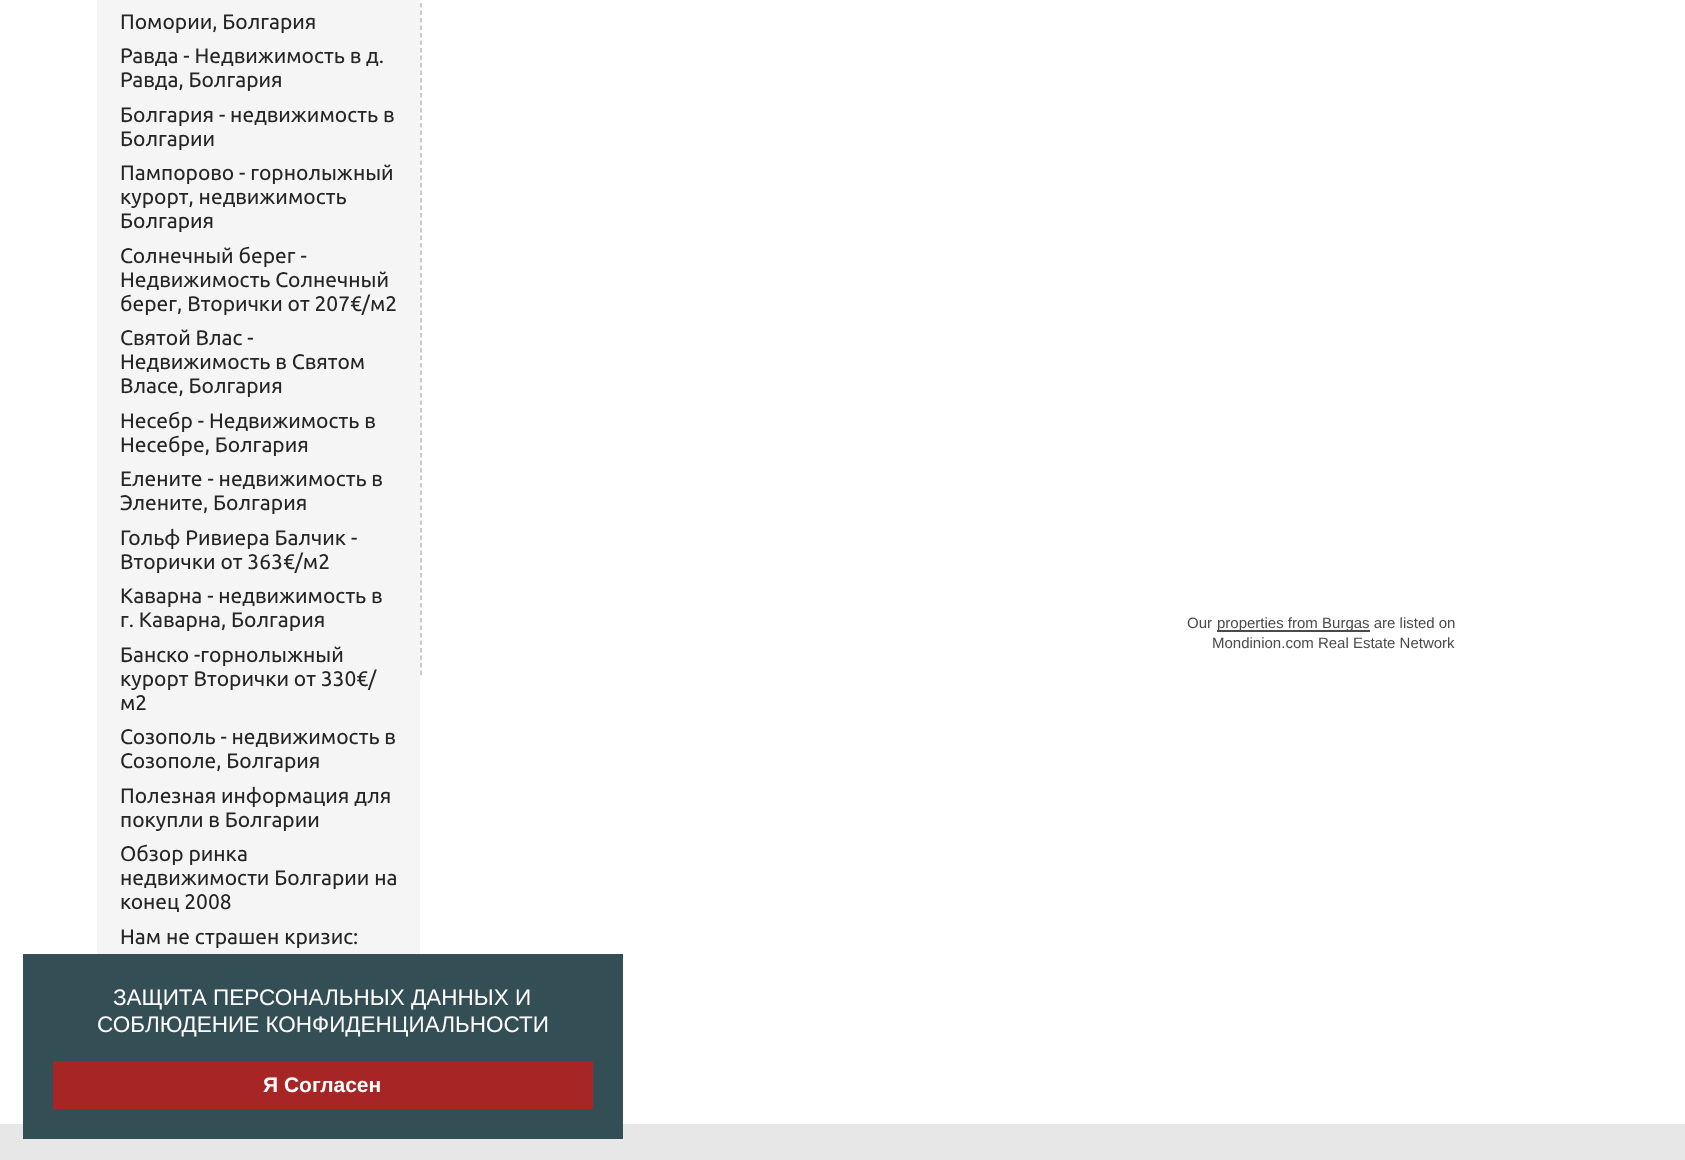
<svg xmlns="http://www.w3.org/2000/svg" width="1685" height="1160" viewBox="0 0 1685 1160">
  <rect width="100%" height="100%" fill="#ffffff"/>
  <rect x="97" y="0" width="323" height="954" fill="#f5f5f5"/>
  <text x="120" y="29" font-family="Ubuntu" font-size="21" fill="#252525">Помории, Болгария</text>
  <text x="120" y="63" font-family="Ubuntu" font-size="21" fill="#252525">Равда - Недвижимость в д.</text>
  <text x="120" y="87" font-family="Ubuntu" font-size="21" fill="#252525">Равда, Болгария</text>
  <text x="120" y="122" font-family="Ubuntu" font-size="21" fill="#252525">Болгария - недвижимость в</text>
  <text x="120" y="146" font-family="Ubuntu" font-size="21" fill="#252525">Болгарии</text>
  <text x="120" y="180" font-family="Ubuntu" font-size="21" fill="#252525">Пампорово - горнолыжный</text>
  <text x="120" y="204" font-family="Ubuntu" font-size="21" fill="#252525">курорт, недвижимость</text>
  <text x="120" y="228" font-family="Ubuntu" font-size="21" fill="#252525">Болгария</text>
  <text x="120" y="263" font-family="Ubuntu" font-size="21" fill="#252525">Солнечный берег -</text>
  <text x="120" y="287" font-family="Ubuntu" font-size="21" fill="#252525">Недвижимость Солнечный</text>
  <text x="120" y="311" font-family="Ubuntu" font-size="21" fill="#252525">берег, Вторички от 207€/м2</text>
  <text x="120" y="345" font-family="Ubuntu" font-size="21" fill="#252525">Святой Влас -</text>
  <text x="120" y="369" font-family="Ubuntu" font-size="21" fill="#252525">Недвижимость в Святом</text>
  <text x="120" y="393" font-family="Ubuntu" font-size="21" fill="#252525">Власе, Болгария</text>
  <text x="120" y="428" font-family="Ubuntu" font-size="21" fill="#252525">Несебр - Недвижимость в</text>
  <text x="120" y="452" font-family="Ubuntu" font-size="21" fill="#252525">Несебре, Болгария</text>
  <text x="120" y="486" font-family="Ubuntu" font-size="21" fill="#252525">Елените - недвижимость в</text>
  <text x="120" y="510" font-family="Ubuntu" font-size="21" fill="#252525">Элените, Болгария</text>
  <text x="120" y="545" font-family="Ubuntu" font-size="21" fill="#252525">Гольф Ривиера Балчик -</text>
  <text x="120" y="569" font-family="Ubuntu" font-size="21" fill="#252525">Вторички от 363€/м2</text>
  <text x="120" y="603" font-family="Ubuntu" font-size="21" fill="#252525">Каварна - недвижимость в</text>
  <text x="120" y="627" font-family="Ubuntu" font-size="21" fill="#252525">г. Каварна, Болгария</text>
  <text x="120" y="662" font-family="Ubuntu" font-size="21" fill="#252525">Банско -горнолыжный</text>
  <text x="120" y="686" font-family="Ubuntu" font-size="21" fill="#252525">курорт Вторички от 330€/</text>
  <text x="120" y="710" font-family="Ubuntu" font-size="21" fill="#252525">м2</text>
  <text x="120" y="744" font-family="Ubuntu" font-size="21" fill="#252525">Созополь - недвижимость в</text>
  <text x="120" y="768" font-family="Ubuntu" font-size="21" fill="#252525">Созополе, Болгария</text>
  <text x="120" y="803" font-family="Ubuntu" font-size="21" fill="#252525">Полезная информация для</text>
  <text x="120" y="827" font-family="Ubuntu" font-size="21" fill="#252525">покупли в Болгарии</text>
  <text x="120" y="861" font-family="Ubuntu" font-size="21" fill="#252525">Обзор ринка</text>
  <text x="120" y="885" font-family="Ubuntu" font-size="21" fill="#252525">недвижимости Болгарии на</text>
  <text x="120" y="909" font-family="Ubuntu" font-size="21" fill="#252525">конец 2008</text>
  <text x="120" y="944" font-family="Ubuntu" font-size="21" fill="#252525">Нам не страшен кризис:</text>
  <path d="M421-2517V675" fill="none" stroke="#bbbbbb" stroke-width="1.5" stroke-dasharray="4.5 3"/>
  <text x="1187" y="628" font-family="Liberation Sans" font-size="15" fill="#4a4a4a">Our</text>
  <rect x="1217" y="630" width="153" height="2" fill="#4a4a4a"/>
  <text x="1217" y="628" font-family="Liberation Sans" font-size="15" fill="#4a4a4a">properties from Burgas are listed on</text>
  <text x="1212" y="648" font-family="Liberation Sans" font-size="15" fill="#4a4a4a">Mondinion.com Real Estate Network</text>
  <rect x="0" y="1124" width="1685" height="36" fill="#e7e7e7"/>
  <rect x="23" y="954" width="600" height="185" fill="#344e56"/>
  <text x="113" y="1005" font-family="Liberation Sans" font-size="22.5" fill="#ffffff">ЗАЩИТА ПЕРСОНАЛЬНЫХ ДАННЫХ И</text>
  <text x="97" y="1032" font-family="Liberation Sans" font-size="22.5" fill="#ffffff">СОБЛЮДЕНИЕ КОНФИДЕНЦИАЛЬНОСТИ</text>
  <rect x="53" y="1061" width="540" height="48" fill="#a82525"/>
  <text x="263" y="1092" font-family="Liberation Sans" font-size="21" font-weight="bold" fill="#ffffff">Я Согласен</text>
</svg>
